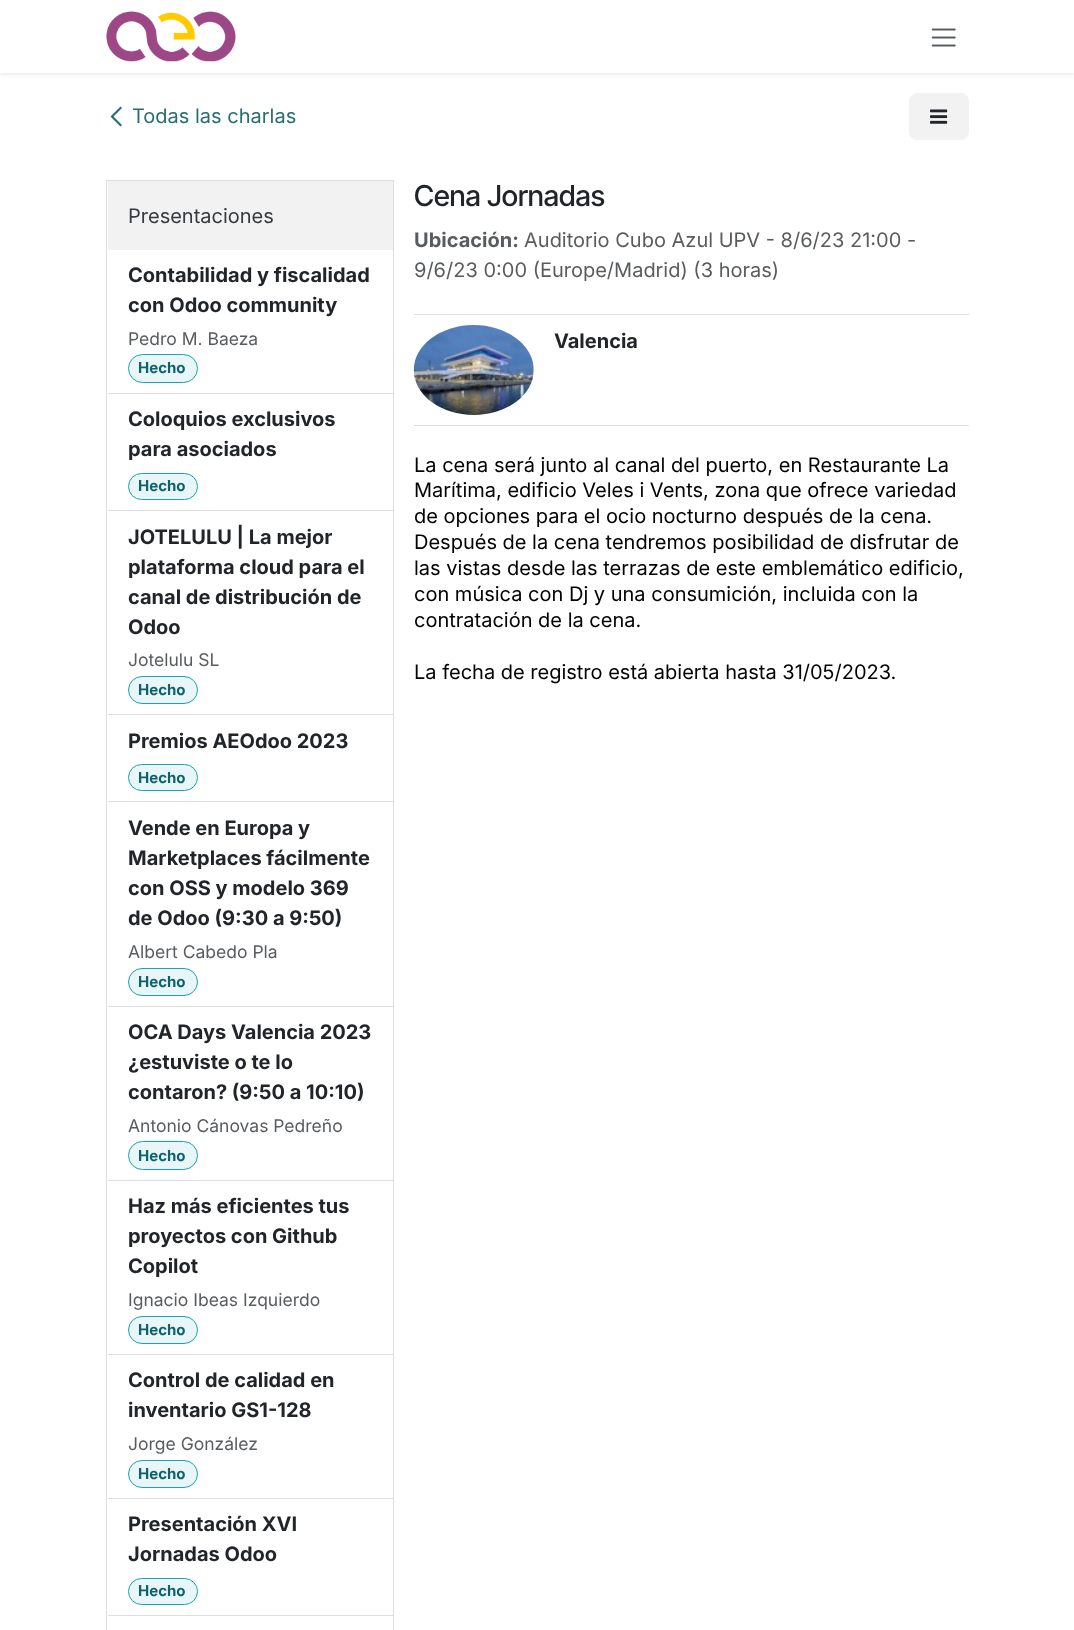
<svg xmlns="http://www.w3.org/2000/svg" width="1074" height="1630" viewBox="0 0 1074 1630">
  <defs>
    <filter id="blur1" x="-50%" y="-200%" width="200%" height="500%"><feGaussianBlur stdDeviation="2"/></filter>
  </defs>
  <rect width="100%" height="100%" fill="#ffffff"/>
  <rect x="0" y="1" width="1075" height="73" fill="#000000" fill-opacity="0.1" filter="url(#blur1)"/>
  <rect x="0" y="0" width="1074" height="73" fill="#ffffff"/>
  <image x="106" y="11" width="130" height="51" href="img1.png"/>
  <image x="931" y="28" width="25" height="19" href="img2.png"/>
  <path d="M110.5 116.5L120.5 106.5L122 108L113.5 116.5L122 125L120.5 126.5Z" fill="#276e72"/>
  <text x="132" y="123" font-family="Inter" font-size="20" fill="#276e72">Todas las charlas</text>
  <rect x="909.5" y="93.5" width="59" height="46" rx="7.5" fill="#f3f2f2" stroke="#f3f2f2"/>
  <image x="930" y="109" width="18" height="15" href="img3.png"/>
  <rect x="106.5" y="180.5" width="287" height="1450" fill="none" stroke="#dededf"/>
  <rect x="108" y="181" width="285" height="69" fill="#f3f2f2"/>
  <text x="128" y="223" font-family="Inter" font-size="20" fill="#343a40">Presentaciones</text>
  <rect x="108" y="393" width="285" height="1" fill="#dededf"/>
  <text x="128" y="282" font-family="Inter" font-size="20" font-weight="bold" fill="#212529">Contabilidad y fiscalidad</text>
  <text x="128" y="312" font-family="Inter" font-size="20" font-weight="bold" fill="#212529">con Odoo community</text>
  <text x="128" y="345" font-family="Inter" font-size="17.5" fill="#595c5f">Pedro M. Baeza</text>
  <rect x="128.5" y="354.5" width="69" height="28" rx="14" fill="#e8f6f8" stroke="#17a2b8"/>
  <text x="138" y="373" font-family="Inter" font-size="15" font-weight="bold" fill="#0e626f">Hecho</text>
  <rect x="108" y="510" width="285" height="1" fill="#dededf"/>
  <text x="128" y="426" font-family="Inter" font-size="20" font-weight="bold" fill="#212529">Coloquios exclusivos</text>
  <text x="128" y="456" font-family="Inter" font-size="20" font-weight="bold" fill="#212529">para asociados</text>
  <rect x="128.5" y="473.5" width="69" height="26" rx="13" fill="#e8f6f8" stroke="#17a2b8"/>
  <text x="138" y="491" font-family="Inter" font-size="15" font-weight="bold" fill="#0e626f">Hecho</text>
  <rect x="108" y="714" width="285" height="1" fill="#dededf"/>
  <text x="128" y="544" font-family="Inter" font-size="20" font-weight="bold" fill="#212529">JOTELULU | La mejor</text>
  <text x="128" y="574" font-family="Inter" font-size="20" font-weight="bold" fill="#212529">plataforma cloud para el</text>
  <text x="128" y="604" font-family="Inter" font-size="20" font-weight="bold" fill="#212529">canal de distribución de</text>
  <text x="128" y="634" font-family="Inter" font-size="20" font-weight="bold" fill="#212529">Odoo</text>
  <text x="128" y="666" font-family="Inter" font-size="17.5" fill="#595c5f">Jotelulu SL</text>
  <rect x="128.5" y="676.5" width="69" height="27" rx="13.5" fill="#e8f6f8" stroke="#17a2b8"/>
  <text x="138" y="695" font-family="Inter" font-size="15" font-weight="bold" fill="#0e626f">Hecho</text>
  <rect x="108" y="801" width="285" height="1" fill="#dededf"/>
  <text x="128" y="748" font-family="Inter" font-size="20" font-weight="bold" fill="#212529">Premios AEOdoo 2023</text>
  <rect x="128.5" y="764.5" width="69" height="26" rx="13" fill="#e8f6f8" stroke="#17a2b8"/>
  <text x="138" y="783" font-family="Inter" font-size="15" font-weight="bold" fill="#0e626f">Hecho</text>
  <rect x="108" y="1006" width="285" height="1" fill="#dededf"/>
  <text x="128" y="835" font-family="Inter" font-size="20" font-weight="bold" fill="#212529">Vende en Europa y</text>
  <text x="128" y="865" font-family="Inter" font-size="20" font-weight="bold" fill="#212529">Marketplaces fácilmente</text>
  <text x="128" y="895" font-family="Inter" font-size="20" font-weight="bold" fill="#212529">con OSS y modelo 369</text>
  <text x="128" y="925" font-family="Inter" font-size="20" font-weight="bold" fill="#212529">de Odoo (9:30 a 9:50)</text>
  <text x="128" y="958" font-family="Inter" font-size="17.5" fill="#595c5f">Albert Cabedo Pla</text>
  <rect x="128.5" y="968.5" width="69" height="27" rx="13.5" fill="#e8f6f8" stroke="#17a2b8"/>
  <text x="138" y="987" font-family="Inter" font-size="15" font-weight="bold" fill="#0e626f">Hecho</text>
  <rect x="108" y="1180" width="285" height="1" fill="#dededf"/>
  <text x="128" y="1039" font-family="Inter" font-size="20" font-weight="bold" fill="#212529">OCA Days Valencia 2023</text>
  <text x="128" y="1069" font-family="Inter" font-size="20" font-weight="bold" fill="#212529">¿estuviste o te lo</text>
  <text x="128" y="1099" font-family="Inter" font-size="20" font-weight="bold" fill="#212529">contaron? (9:50 a 10:10)</text>
  <text x="128" y="1132" font-family="Inter" font-size="17.5" fill="#595c5f">Antonio Cánovas Pedreño</text>
  <rect x="128.5" y="1141.5" width="69" height="28" rx="14" fill="#e8f6f8" stroke="#17a2b8"/>
  <text x="138" y="1161" font-family="Inter" font-size="15" font-weight="bold" fill="#0e626f">Hecho</text>
  <rect x="108" y="1354" width="285" height="1" fill="#dededf"/>
  <text x="128" y="1213" font-family="Inter" font-size="20" font-weight="bold" fill="#212529">Haz más eficientes tus</text>
  <text x="128" y="1243" font-family="Inter" font-size="20" font-weight="bold" fill="#212529">proyectos con Github</text>
  <text x="128" y="1273" font-family="Inter" font-size="20" font-weight="bold" fill="#212529">Copilot</text>
  <text x="128" y="1306" font-family="Inter" font-size="17.5" fill="#595c5f">Ignacio Ibeas Izquierdo</text>
  <rect x="128.5" y="1316.5" width="69" height="27" rx="13.5" fill="#e8f6f8" stroke="#17a2b8"/>
  <text x="138" y="1335" font-family="Inter" font-size="15" font-weight="bold" fill="#0e626f">Hecho</text>
  <rect x="108" y="1498" width="285" height="1" fill="#dededf"/>
  <text x="128" y="1387" font-family="Inter" font-size="20" font-weight="bold" fill="#212529">Control de calidad en</text>
  <text x="128" y="1417" font-family="Inter" font-size="20" font-weight="bold" fill="#212529">inventario GS1-128</text>
  <text x="128" y="1450" font-family="Inter" font-size="17.5" fill="#595c5f">Jorge González</text>
  <rect x="128.5" y="1460.5" width="69" height="27" rx="13.5" fill="#e8f6f8" stroke="#17a2b8"/>
  <text x="138" y="1479" font-family="Inter" font-size="15" font-weight="bold" fill="#0e626f">Hecho</text>
  <rect x="108" y="1615" width="285" height="1" fill="#dededf"/>
  <text x="128" y="1531" font-family="Inter" font-size="20" font-weight="bold" fill="#212529">Presentación XVI</text>
  <text x="128" y="1561" font-family="Inter" font-size="20" font-weight="bold" fill="#212529">Jornadas Odoo</text>
  <rect x="128.5" y="1578.5" width="69" height="26" rx="13" fill="#e8f6f8" stroke="#17a2b8"/>
  <text x="138" y="1596" font-family="Inter" font-size="15" font-weight="bold" fill="#0e626f">Hecho</text>
  <rect x="414" y="314" width="555" height="1" fill="#dededf"/>
  <text x="414" y="206" font-family="Inter Tight" font-size="28.75" font-weight="500" fill="#212529">Cena Jornadas</text>
  <text x="414" y="247" font-family="Inter" font-size="20" font-weight="bold" fill="#595c5f">Ubicación:</text>
  <text x="524" y="247" font-family="Inter" font-size="20" fill="#595c5f">Auditorio Cubo Azul UPV - 8/6/23 21:00 -</text>
  <text x="414" y="277" font-family="Inter" font-size="20" fill="#595c5f">9/6/23 0:00 (Europe/Madrid) (3 horas)</text>
  <image x="413" y="325" width="121" height="90" href="img4.png"/>
  <text x="554" y="348" font-family="Inter" font-size="20" font-weight="bold" fill="#212529">Valencia</text>
  <rect x="414" y="425" width="555" height="1" fill="#dededf"/>
  <text x="414" y="472" font-family="Inter" font-size="20" fill="#000000">La cena será junto al canal del puerto, en Restaurante La</text>
  <text x="414" y="497" font-family="Inter" font-size="20" fill="#000000">Marítima, edificio Veles i Vents, zona que ofrece variedad</text>
  <text x="414" y="523" font-family="Inter" font-size="20" fill="#000000">de opciones para el ocio nocturno después de la cena.</text>
  <text x="414" y="549" font-family="Inter" font-size="20" fill="#000000">Después de la cena tendremos posibilidad de disfrutar de</text>
  <text x="414" y="575" font-family="Inter" font-size="20" fill="#000000">las vistas desde las terrazas de este emblemático edificio,</text>
  <text x="414" y="601" font-family="Inter" font-size="20" fill="#000000">con música con Dj y una consumición, incluida con la</text>
  <text x="414" y="627" font-family="Inter" font-size="20" fill="#000000">contratación de la cena.</text>
  <text x="414" y="679" font-family="Inter" font-size="20" fill="#000000">La fecha de registro está abierta hasta 31/05/2023.</text>
</svg>
